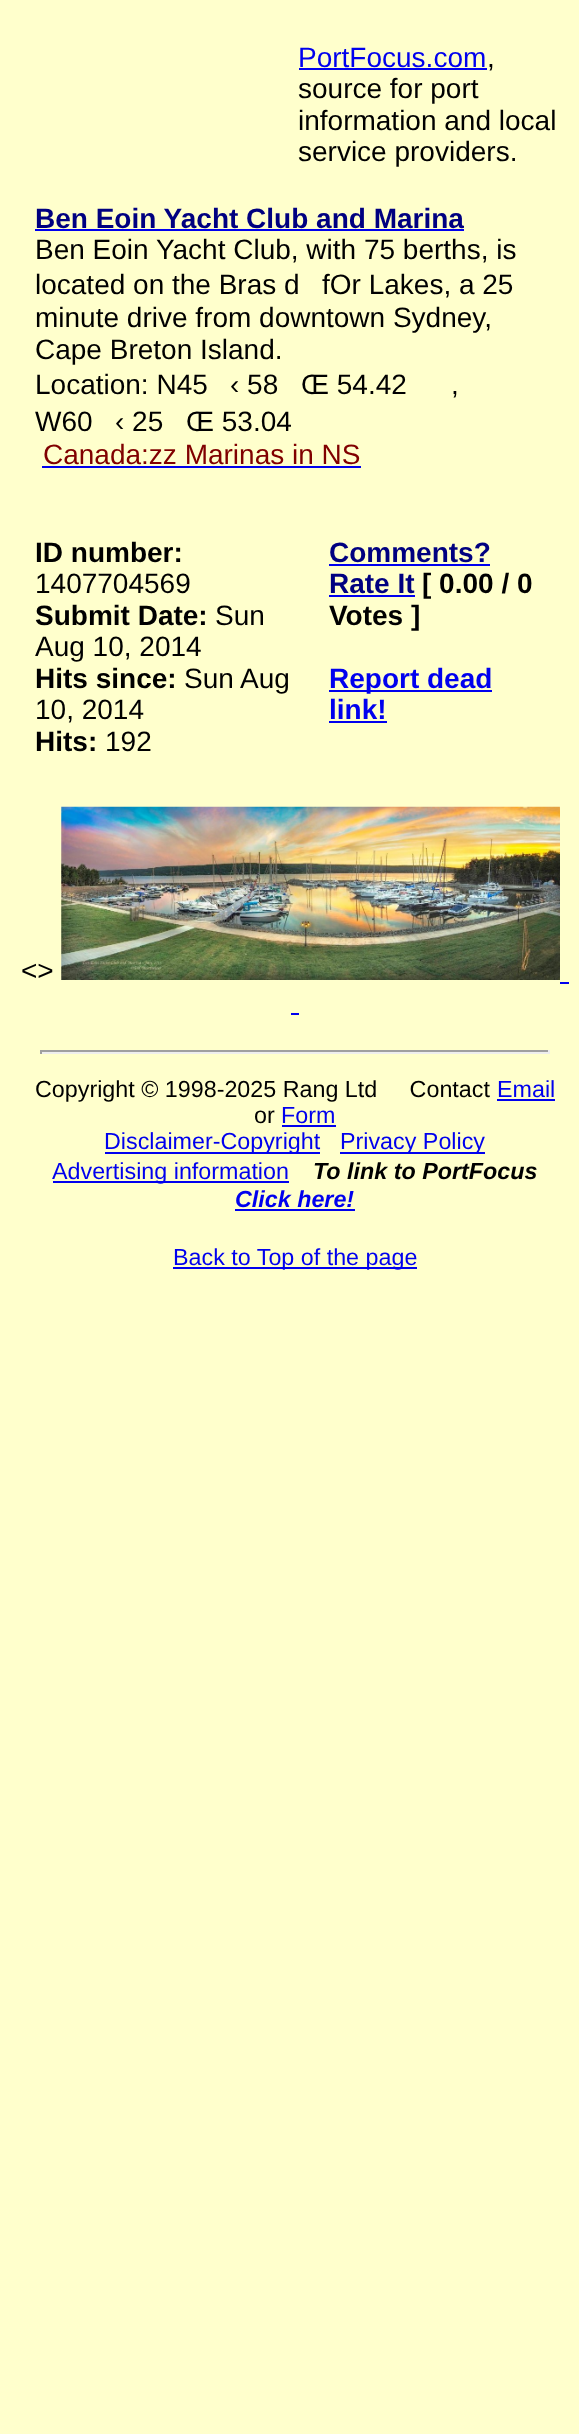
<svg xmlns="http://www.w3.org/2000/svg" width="579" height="2434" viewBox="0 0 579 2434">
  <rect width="100%" height="100%" fill="#ffffcc"/>
  <text x="298" y="67" font-family="Liberation Sans" font-size="28" fill="#0000ee">PortFocus.com</text>
  <rect x="299" y="68" width="188" height="2" fill="#0000ee"/>
  <text x="487" y="67" font-family="Liberation Sans" font-size="28" fill="#000000">,</text>
  <text x="298" y="98" font-family="Liberation Sans" font-size="28" fill="#000000">source for port</text>
  <text x="298" y="130" font-family="Liberation Sans" font-size="28" fill="#000000">information and local</text>
  <text x="298" y="161" font-family="Liberation Sans" font-size="28" fill="#000000">service providers.</text>
  <text x="35" y="228" font-family="Liberation Sans" font-size="28" font-weight="bold" fill="#000080">Ben Eoin Yacht Club and Marina</text>
  <rect x="35" y="229" width="429" height="2" fill="#0000ee"/>
  <text x="35" y="259" font-family="Liberation Sans" font-size="28" fill="#000000">Ben Eoin Yacht Club, with 75 berths, is</text>
  <text x="35" y="294" font-family="Liberation Sans" font-size="28" fill="#000000">located on the Bras d</text>
  <text x="322" y="294" font-family="Liberation Sans" font-size="28" fill="#000000">fOr Lakes, a 25</text>
  <text x="35" y="327" font-family="Liberation Sans" font-size="28" fill="#000000">minute drive from downtown Sydney,</text>
  <text x="35" y="359" font-family="Liberation Sans" font-size="28" fill="#000000">Cape Breton Island.</text>
  <text x="35" y="394" font-family="Liberation Sans" font-size="28" fill="#000000">Location: N45</text>
  <text x="230" y="394" font-family="Liberation Sans" font-size="28" fill="#000000">‹ 58</text>
  <text x="301" y="394" font-family="Liberation Sans" font-size="28" fill="#000000">Œ 54.42</text>
  <text x="451" y="394" font-family="Liberation Sans" font-size="28" fill="#000000">,</text>
  <text x="35" y="431" font-family="Liberation Sans" font-size="28" fill="#000000">W60</text>
  <text x="115" y="431" font-family="Liberation Sans" font-size="28" fill="#000000">‹ 25</text>
  <text x="186" y="431" font-family="Liberation Sans" font-size="28" fill="#000000">Œ 53.04</text>
  <text x="43" y="464" font-family="Liberation Sans" font-size="28" fill="#800000">Canada:zz Marinas in NS</text>
  <rect x="42" y="466" width="319" height="2" fill="#0000ee"/>
  <text x="35" y="562" font-family="Liberation Sans" font-size="28" font-weight="bold" fill="#000000">ID number:</text>
  <text x="35" y="593" font-family="Liberation Sans" font-size="28" fill="#000000">1407704569</text>
  <text x="35" y="625" font-family="Liberation Sans" font-size="28" font-weight="bold" fill="#000000">Submit Date:</text>
  <text x="215" y="625" font-family="Liberation Sans" font-size="28" fill="#000000">Sun</text>
  <text x="35" y="656" font-family="Liberation Sans" font-size="28" fill="#000000">Aug 10, 2014</text>
  <text x="35" y="688" font-family="Liberation Sans" font-size="28" font-weight="bold" fill="#000000">Hits since:</text>
  <text x="184" y="688" font-family="Liberation Sans" font-size="28" fill="#000000">Sun Aug</text>
  <text x="35" y="719" font-family="Liberation Sans" font-size="28" fill="#000000">10, 2014</text>
  <text x="35" y="751" font-family="Liberation Sans" font-size="28" font-weight="bold" fill="#000000">Hits:</text>
  <text x="105" y="751" font-family="Liberation Sans" font-size="28" fill="#000000">192</text>
  <text x="329" y="562" font-family="Liberation Sans" font-size="28" font-weight="bold" fill="#000080">Comments?</text>
  <rect x="329" y="564" width="161" height="2" fill="#0000ee"/>
  <text x="329" y="593" font-family="Liberation Sans" font-size="28" font-weight="bold" fill="#000080">Rate It</text>
  <rect x="329" y="595" width="86" height="2" fill="#0000ee"/>
  <text x="422" y="593" font-family="Liberation Sans" font-size="28" font-weight="bold" fill="#000000">[ 0.00 / 0</text>
  <text x="329" y="625" font-family="Liberation Sans" font-size="28" font-weight="bold" fill="#000000">Votes ]</text>
  <rect x="329" y="690" width="163" height="2" fill="#0000ee"/>
  <text x="329" y="688" font-family="Liberation Sans" font-size="28" font-weight="bold" fill="#0000ee">Report dead</text>
  <text x="329" y="719" font-family="Liberation Sans" font-size="28" font-weight="bold" fill="#0000ee">link!</text>
  <rect x="329" y="721" width="58" height="2" fill="#0000ee"/>
  <text x="21" y="980" font-family="Liberation Sans" font-size="28" fill="#000000">&lt;&gt;</text>
  <image x="61" y="806" width="499" height="174" href="img1.png"/>
  <rect x="560" y="982" width="9" height="2" fill="#0000ee"/>
  <rect x="291" y="1013" width="8" height="2" fill="#0000ee"/>
  <rect x="40" y="1050" width="510" height="2" fill="#9f9f9f"/>
  <rect x="548" y="1050" width="2" height="4" fill="#eeeeee"/>
  <rect x="40" y="1052" width="510" height="2" fill="#eeeeee"/>
  <rect x="40" y="1050" width="2" height="4" fill="#9f9f9f"/>
  <text x="35" y="1097" font-family="Liberation Sans" font-size="23.3" fill="#000000" xml:space="preserve">Copyright © 1998-2025 Rang Ltd     Contact</text>
  <text x="497" y="1097" font-family="Liberation Sans" font-size="23.3" fill="#0000ee">Email</text>
  <rect x="497" y="1099" width="58" height="2" fill="#0000ee"/>
  <text x="254" y="1123" font-family="Liberation Sans" font-size="23.3" fill="#000000">or</text>
  <text x="281" y="1123" font-family="Liberation Sans" font-size="23.3" fill="#0000ee">Form</text>
  <rect x="282" y="1125" width="54" height="2" fill="#0000ee"/>
  <rect x="105" y="1152" width="215" height="2" fill="#0000ee"/>
  <text x="104" y="1149" font-family="Liberation Sans" font-size="23.3" fill="#0000ee">Disclaimer-Copyright</text>
  <rect x="340" y="1152" width="145" height="2" fill="#0000ee"/>
  <text x="340" y="1149" font-family="Liberation Sans" font-size="23.3" fill="#0000ee">Privacy Policy</text>
  <rect x="53" y="1181" width="236" height="2" fill="#0000ee"/>
  <text x="52" y="1179" font-family="Liberation Sans" font-size="23.3" fill="#0000ee">Advertising information</text>
  <text x="313" y="1179" font-family="Liberation Sans" font-size="23.3" font-weight="bold" font-style="italic" fill="#000000">To link to PortFocus</text>
  <text x="235" y="1207" font-family="Liberation Sans" font-size="23.3" font-weight="bold" font-style="italic" fill="#0000ee">Click here!</text>
  <rect x="235" y="1209" width="120" height="2" fill="#0000ee"/>
  <rect x="173" y="1267" width="244" height="2" fill="#0000ee"/>
  <text x="173" y="1265" font-family="Liberation Sans" font-size="23.3" fill="#0000ee">Back to Top of the page</text>
</svg>
